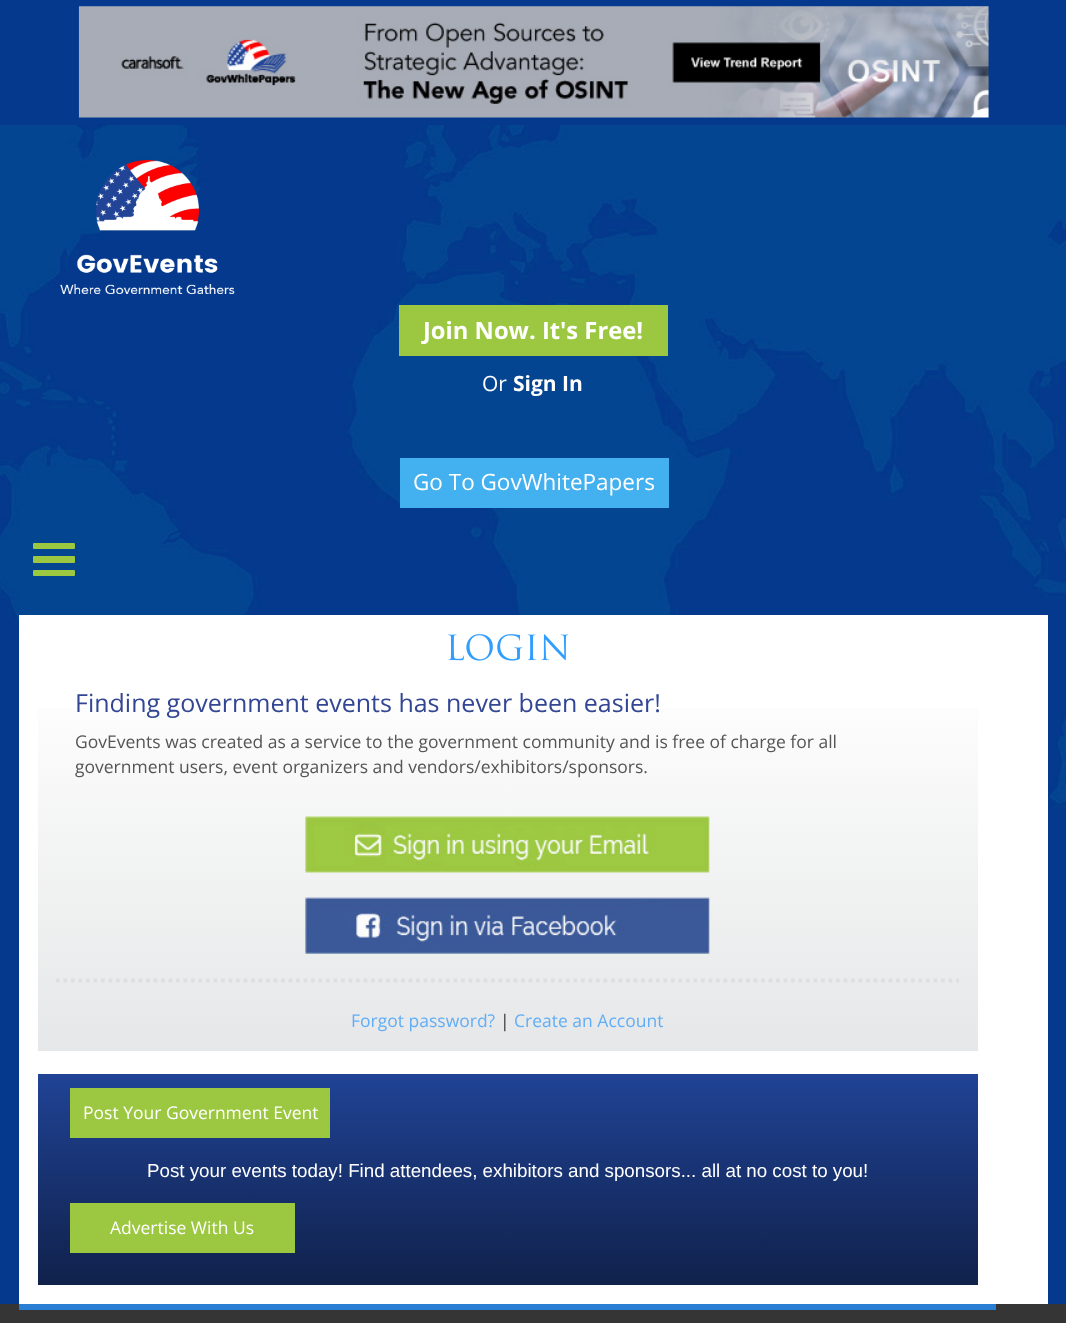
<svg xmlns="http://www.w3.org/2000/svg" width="1066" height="1323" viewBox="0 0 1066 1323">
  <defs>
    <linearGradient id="g1" gradientUnits="userSpaceOnUse" x1="508" y1="670" x2="508" y2="1051"><stop offset="0" stop-color="#ffffff"/><stop offset="1" stop-color="#e6e7e8"/></linearGradient>
    <linearGradient id="g2" gradientUnits="userSpaceOnUse" x1="508" y1="1074" x2="508" y2="1285"><stop offset="0" stop-color="#204395"/><stop offset="1" stop-color="#10214b"/></linearGradient>
  </defs>
  <rect width="100%" height="100%" fill="#04398d"/>
  <image x="0" y="125" width="1066" height="684" href="img1.png"/>
  <image x="78" y="6" width="911" height="112" href="img2.png"/>
  <image x="60" y="160" width="175" height="134" href="img3.png"/>
  <rect x="399" y="305" width="269" height="51" fill="#9cc741"/>
  <text x="423" y="339" font-family="Open Sans" font-size="23.75" font-weight="bold" fill="#ffffff">Join Now. It's Free!</text>
  <text x="482" y="391" font-family="Open Sans" font-size="21" fill="#ffffff">Or</text>
  <text x="513" y="391" font-family="Open Sans" font-size="21" font-weight="bold" fill="#ffffff">Sign In</text>
  <rect x="400" y="458" width="269" height="50" fill="#43b0f0"/>
  <text x="413" y="490" font-family="Open Sans" font-size="22.5" fill="#ffffff">Go To GovWhitePapers</text>
  <rect x="33" y="543" width="42" height="6" rx="1" fill="#9cc741"/>
  <rect x="33" y="556" width="42" height="7" rx="1" fill="#9cc741"/>
  <rect x="33" y="570" width="42" height="6" rx="1" fill="#9cc741"/>
  <rect x="19" y="615" width="1029" height="689" fill="#ffffff"/>
  <rect x="0" y="1304" width="1066" height="19" fill="#353535"/>
  <rect x="19" y="1304" width="977" height="6" fill="#297ed3"/>
  <image x="448" y="634" width="121" height="27" href="img4.png"/>
  <rect x="38" y="708" width="940" height="343" fill="url(#g1)"/>
  <text x="75" y="712" font-family="Open Sans" font-size="25" fill="#334693">Finding government events has never been easier!</text>
  <text x="75" y="748" font-family="Open Sans" font-size="17.5" fill="#555555">GovEvents was created as a service to the government community and is free of charge for all</text>
  <text x="75" y="773" font-family="Open Sans" font-size="17.5" fill="#555555">government users, event organizers and vendors/exhibitors/sponsors.</text>
  <image x="305" y="816" width="405" height="57" href="img5.png"/>
  <image x="305" y="897" width="405" height="57" href="img6.png"/>
  <path d="M56 980.5H959" fill="none" stroke="#dfdfdf" stroke-width="3.8" stroke-dasharray="3.75 3.75"/>
  <text x="351" y="1027" font-family="Open Sans" font-size="17.5" fill="#61aef6">Forgot password?</text>
  <text x="500" y="1027" font-family="Open Sans" font-size="17.5" fill="#333333">|</text>
  <text x="514" y="1027" font-family="Open Sans" font-size="17.5" fill="#61aef6">Create an Account</text>
  <rect x="38" y="1074" width="940" height="211" fill="url(#g2)"/>
  <rect x="70" y="1088" width="260" height="50" fill="#9cc741"/>
  <text x="83" y="1119" font-family="Open Sans" font-size="17.5" fill="#ffffff">Post Your Government Event</text>
  <text x="147" y="1177" font-family="Liberation Sans" font-size="18.75" fill="#ffffff">Post your events today! Find attendees, exhibitors and sponsors... all at no cost to you!</text>
  <rect x="70" y="1203" width="225" height="50" fill="#9cc741"/>
  <text x="110" y="1234" font-family="Open Sans" font-size="17.5" fill="#ffffff">Advertise With Us</text>
</svg>
